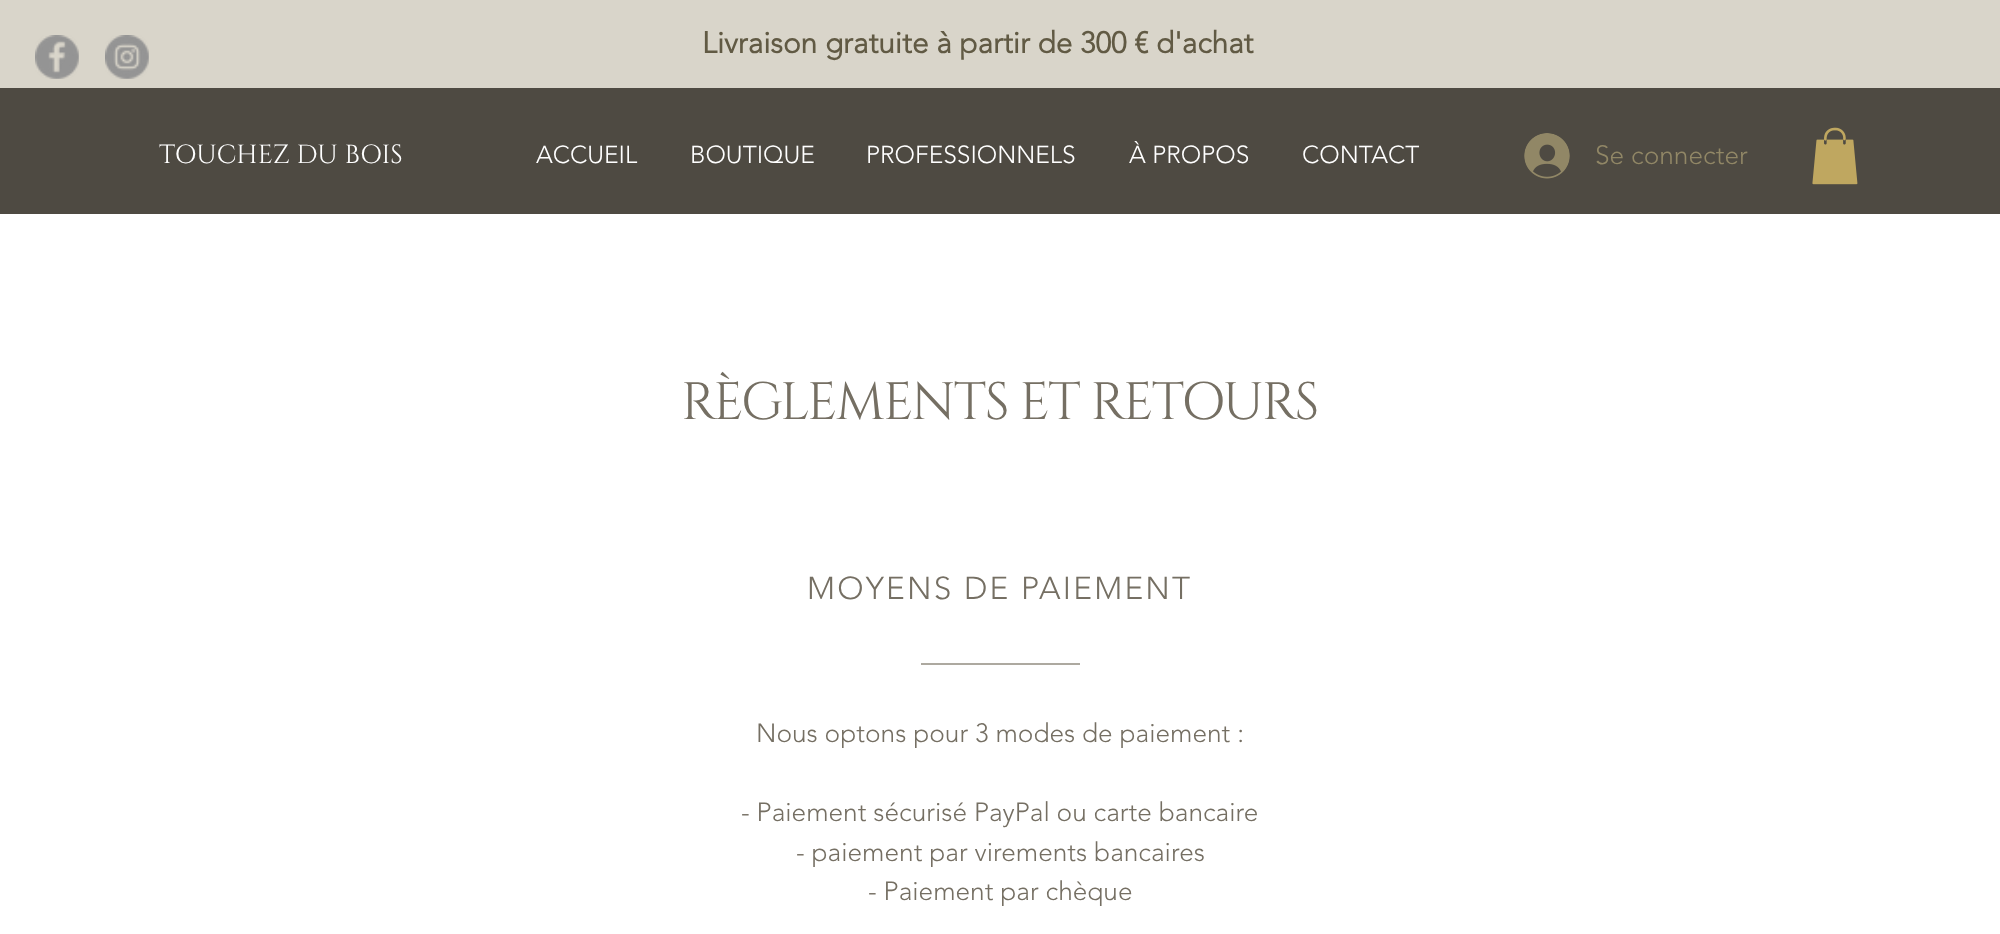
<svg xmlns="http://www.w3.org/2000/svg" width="2000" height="934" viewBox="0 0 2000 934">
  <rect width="100%" height="100%" fill="#ffffff"/>
  <rect x="0" y="0" width="2000" height="88" fill="#d9d5ca"/>
  <image x="35" y="35" width="44" height="44" href="img1.png"/>
  <image x="105" y="35" width="44" height="44" href="img2.png"/>
  <text x="702" y="53" font-family="'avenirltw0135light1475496'" font-size="29.75" font-weight="bold" fill="#615a44">Livraison gratuite à partir de 300 € d'achat</text>
  <rect x="0" y="88" width="2000" height="126" fill="#4e4a42"/>
  <text x="159" y="163" font-family="Cinzel" font-size="26.25" fill="#ffffff">TOUCHEZ DU BOIS</text>
  <text x="536" y="163" font-family="'avenirltw0135light1475496'" font-size="24.5" font-weight="300" fill="#ffffff">ACCUEIL</text>
  <text x="690" y="163" font-family="'avenirltw0135light1475496'" font-size="24.5" font-weight="300" fill="#ffffff">BOUTIQUE</text>
  <text x="866" y="163" font-family="'avenirltw0135light1475496'" font-size="24.5" font-weight="300" fill="#ffffff">PROFESSIONNELS</text>
  <text x="1129" y="163" font-family="'avenirltw0135light1475496'" font-size="24.5" font-weight="300" fill="#ffffff">À PROPOS</text>
  <text x="1302" y="163" font-family="'avenirltw0135light1475496'" font-size="24.5" font-weight="300" fill="#ffffff">CONTACT</text>
  <image x="1524" y="133" width="46" height="46" href="img3.png"/>
  <text x="1595" y="164" font-family="'avenirltw0135light1475496'" font-size="26.25" font-weight="300" fill="#918766">Se connecter</text>
  <image x="1812" y="127" width="46" height="58" href="img4.png"/>
  <text x="681" y="419" font-family="Cinzel" font-size="52.5" letter-spacing="-1.6" fill="#756f63">RÈGLEMENTS ET RETOURS</text>
  <text x="807" y="599" font-family="'avenirltw0135light1475496'" font-size="31.5" font-weight="300" letter-spacing="2.25" fill="#756f63">MOYENS DE PAIEMENT</text>
  <rect x="921" y="663" width="159" height="2" fill="#ada9a0"/>
  <text x="756" y="742" font-family="'avenirltw0135light1475496'" font-size="26.25" font-weight="300" fill="#756f63">Nous optons pour 3 modes de paiement :</text>
  <text x="741" y="821" font-family="'avenirltw0135light1475496'" font-size="26.25" font-weight="300" fill="#756f63">- Paiement sécurisé PayPal ou carte bancaire</text>
  <text x="796" y="861" font-family="'avenirltw0135light1475496'" font-size="26.25" font-weight="300" fill="#756f63">- paiement par virements bancaires</text>
  <text x="868" y="900" font-family="'avenirltw0135light1475496'" font-size="26.25" font-weight="300" fill="#756f63">- Paiement par chèque</text>
</svg>
